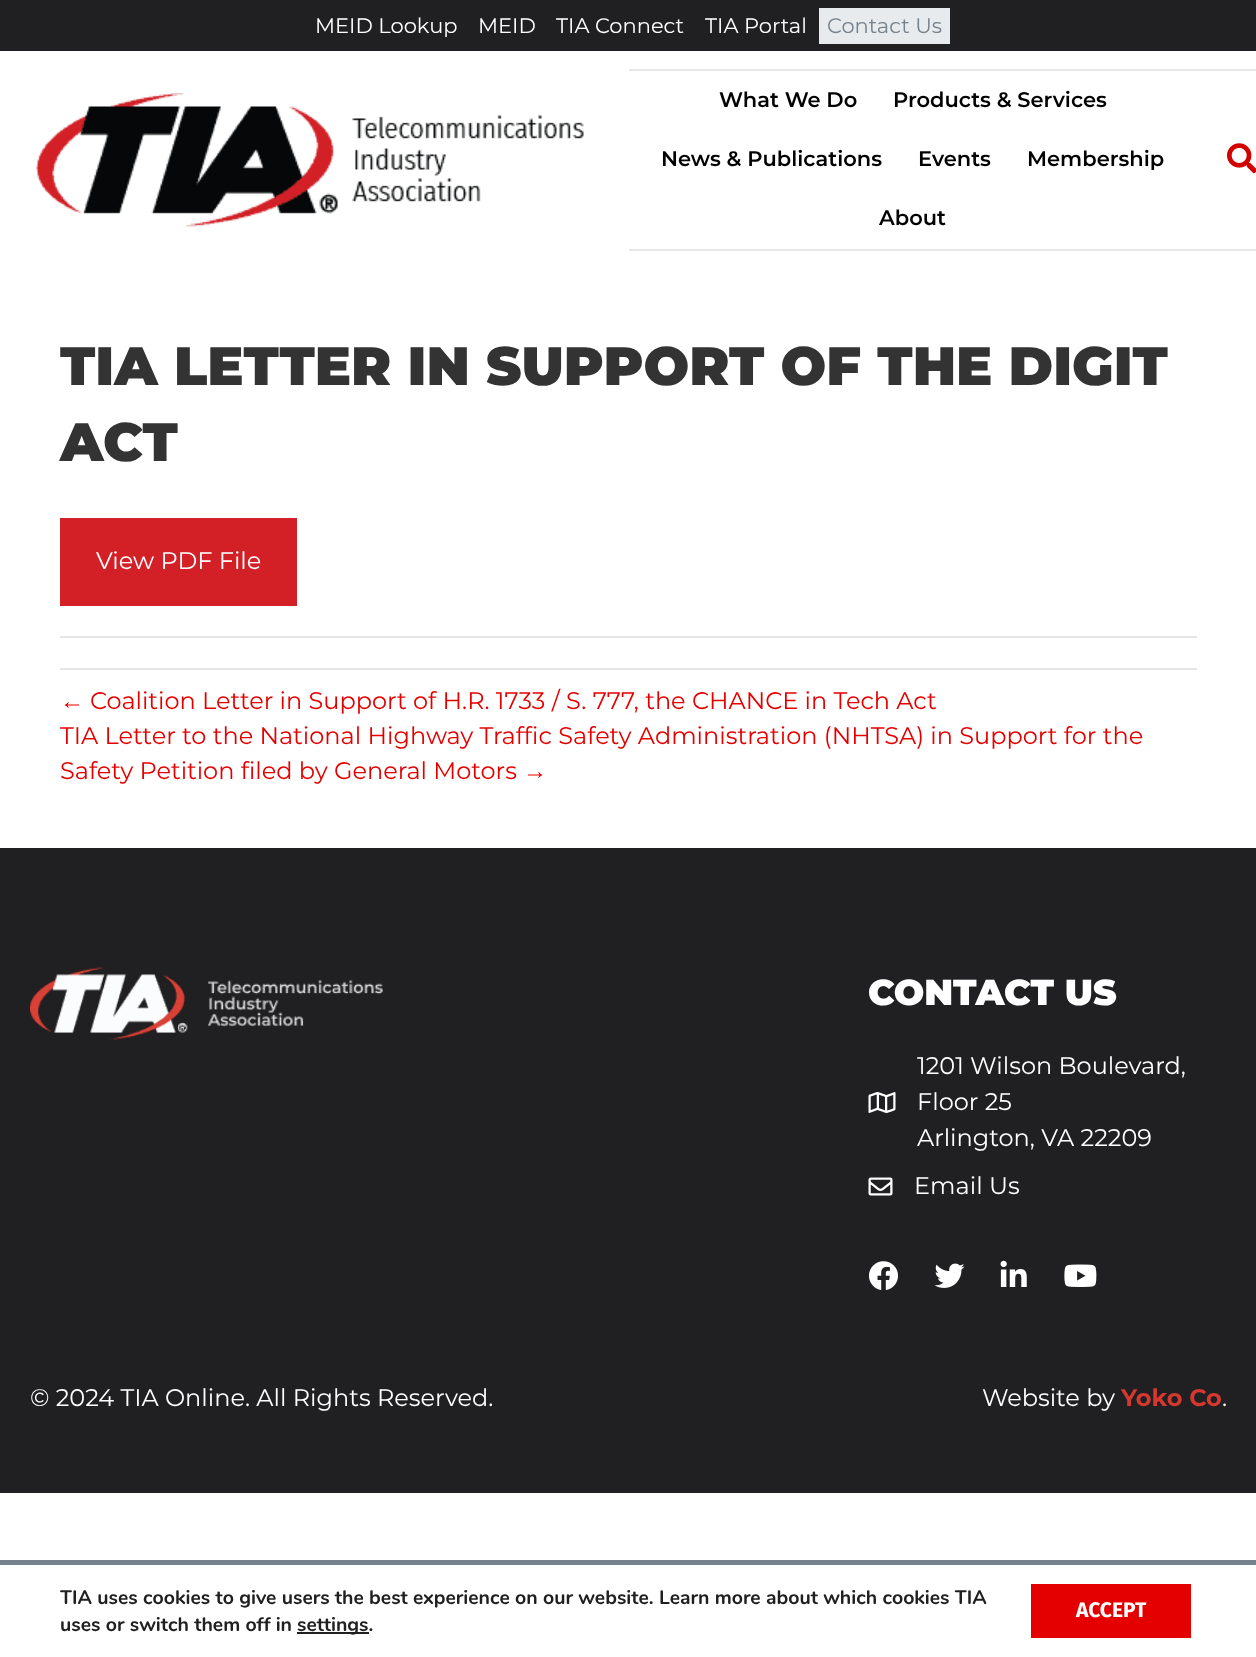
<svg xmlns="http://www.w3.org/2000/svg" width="1256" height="1657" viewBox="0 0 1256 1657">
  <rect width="100%" height="100%" fill="#ffffff"/>
  <rect x="0" y="0" width="1256" height="51" fill="#201f21"/>
  <text x="315" y="33" font-family="Montserrat" font-size="21" fill="#ffffff">MEID Lookup</text>
  <text x="478" y="33" font-family="Montserrat" font-size="21" fill="#ffffff">MEID</text>
  <text x="556" y="33" font-family="Montserrat" font-size="21" fill="#ffffff">TIA Connect</text>
  <text x="705" y="33" font-family="Montserrat" font-size="21" fill="#ffffff">TIA Portal</text>
  <rect x="819" y="8" width="131" height="36" fill="#e8ebed"/>
  <text x="827" y="33" font-family="Montserrat" font-size="21" fill="#76828d">Contact Us</text>
  <image x="36" y="93" width="548" height="134" href="img1.png"/>
  <rect x="629" y="69" width="627" height="2" fill="#e6e6e6"/>
  <rect x="629" y="249" width="627" height="2" fill="#e6e6e6"/>
  <text x="719" y="107" font-family="Montserrat" font-size="21" font-weight="600" fill="#000000">What We Do</text>
  <text x="893" y="107" font-family="Montserrat" font-size="21" font-weight="600" fill="#000000">Products &amp; Services</text>
  <text x="661" y="166" font-family="Montserrat" font-size="21" font-weight="600" fill="#000000">News &amp; Publications</text>
  <text x="918" y="166" font-family="Montserrat" font-size="21" font-weight="600" fill="#000000">Events</text>
  <text x="1027" y="166" font-family="Montserrat" font-size="21" font-weight="600" fill="#000000">Membership</text>
  <text x="879" y="225" font-family="Montserrat" font-size="21" font-weight="600" fill="#000000">About</text>
  <image x="1227" y="143" width="29" height="31" href="img2.png"/>
  <text x="60" y="385" font-family="Montserrat" font-size="54" font-weight="900" fill="#333333">TIA LETTER IN SUPPORT OF THE DIGIT</text>
  <text x="60" y="461" font-family="Montserrat" font-size="54" font-weight="900" fill="#333333">ACT</text>
  <rect x="60" y="518" width="237" height="88" fill="#d32027"/>
  <text x="96" y="569" font-family="Montserrat" font-size="24" fill="#ffffff">View PDF File</text>
  <rect x="60" y="636" width="1137" height="2" fill="#e6e6e6"/>
  <rect x="60" y="668" width="1137" height="2" fill="#e6e6e6"/>
  <text x="60" y="709" font-family="Liberation Sans" font-size="24" fill="#e50000">←</text>
  <text x="90" y="709" font-family="Montserrat" font-size="24" fill="#e50000">Coalition Letter in Support of H.R. 1733 / S. 777, the CHANCE in Tech Act</text>
  <text x="60" y="744" font-family="Montserrat" font-size="24" fill="#e50000">TIA Letter to the National Highway Traffic Safety Administration (NHTSA) in Support for the</text>
  <text x="60" y="779" font-family="Montserrat" font-size="24" fill="#e50000">Safety Petition filed by General Motors</text>
  <text x="523" y="779" font-family="Liberation Sans" font-size="24" fill="#e50000">→</text>
  <rect x="0" y="848" width="1256" height="645" fill="#201f21"/>
  <image x="30" y="967" width="353" height="73" href="img3.png"/>
  <text x="868" y="1005" font-family="Montserrat" font-size="36" font-weight="900" fill="#ffffff">CONTACT US</text>
  <image x="868" y="1092" width="28" height="21" href="img4.png"/>
  <text x="917" y="1074" font-family="Montserrat" font-size="24" fill="#ffffff">1201 Wilson Boulevard,</text>
  <text x="917" y="1110" font-family="Montserrat" font-size="24" fill="#ffffff">Floor 25</text>
  <text x="917" y="1146" font-family="Montserrat" font-size="24" fill="#ffffff">Arlington, VA 22209</text>
  <image x="868" y="1177" width="25" height="19" href="img5.png"/>
  <text x="914" y="1194" font-family="Montserrat" font-size="24" fill="#ffffff">Email Us</text>
  <image x="869" y="1261" width="29" height="29" href="img6.png"/>
  <image x="934" y="1263" width="31" height="25" href="img7.png"/>
  <image x="1000" y="1260" width="27" height="27" href="img8.png"/>
  <image x="1064" y="1264" width="33" height="23" href="img9.png"/>
  <text x="30" y="1406" font-family="Montserrat" font-size="24" fill="#ffffff">© 2024 TIA Online. All Rights Reserved.</text>
  <text x="982" y="1406" font-family="Montserrat" font-size="24" fill="#ffffff">Website by</text>
  <text x="1121" y="1406" font-family="Montserrat" font-size="24" font-weight="bold" fill="#d4382f">Yoko Co</text>
  <text x="1222" y="1406" font-family="Montserrat" font-size="24" fill="#ffffff">.</text>
  <rect x="0" y="1560" width="1256" height="5" fill="#75828d"/>
  <text x="60" y="1604" font-family="Nunito" font-size="19.5" font-weight="bold" fill="#202020">TIA uses cookies to give users the best experience on our website. Learn more about which cookies TIA</text>
  <text x="60" y="1631" font-family="Nunito" font-size="19.5" font-weight="bold" fill="#202020">uses or switch them off in</text>
  <rect x="297" y="1632" width="72" height="2" fill="#202020"/>
  <text x="297" y="1631" font-family="Nunito" font-size="19.5" font-weight="bold" fill="#202020">settings.</text>
  <rect x="1031" y="1584" width="160" height="54" fill="#e50000"/>
  <text x="1076" y="1617" font-family="Fira Sans" font-size="21" font-weight="bold" fill="#ffffff">ACCEPT</text>
</svg>
